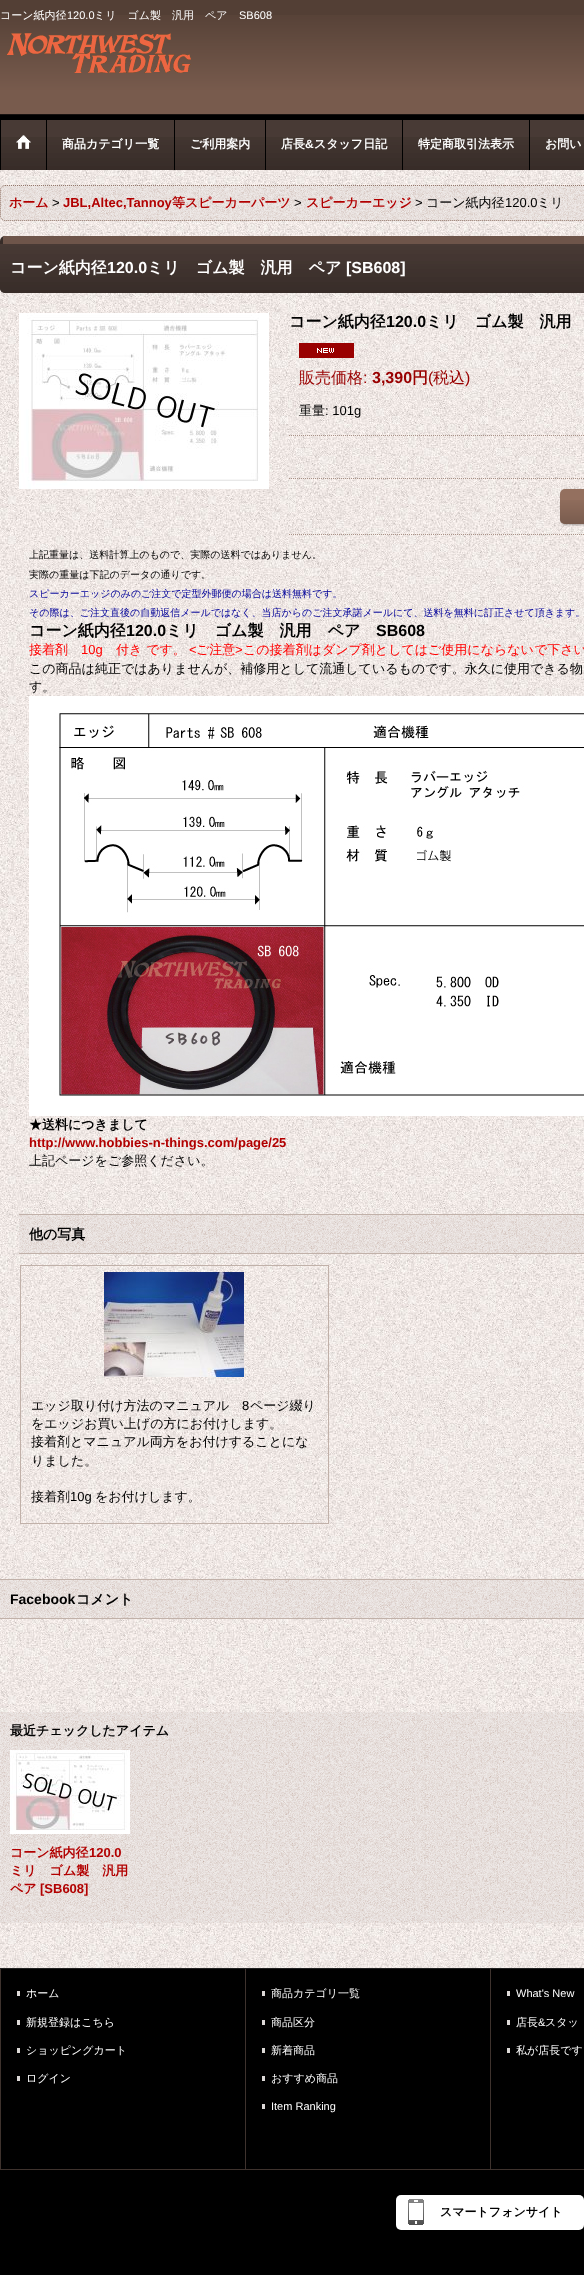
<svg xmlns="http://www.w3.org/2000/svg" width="584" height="2275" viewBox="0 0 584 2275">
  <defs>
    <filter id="blur1" x="-50%" y="-200%" width="200%" height="500%"><feGaussianBlur stdDeviation="1"/></filter>
  </defs>
  <rect width="100%" height="100%" fill="#ffffff"/>
  <image x="0" y="170" width="584" height="1798" href="img1.png"/>
  <rect x="0" y="0" width="584" height="15" fill="#533f35"/>
  <image x="0" y="15" width="584" height="104" href="img2.png"/>
  <text x="0" y="19" font-family="WenQuanYi Zen Hei" font-size="11" font-weight="500" fill="#ffffff">コーン紙内径</text>
  <text x="67" y="19" font-family="Liberation Sans" font-size="11" fill="#ffffff">120.0</text>
  <text x="94" y="19" font-family="WenQuanYi Zen Hei" font-size="11" font-weight="500" fill="#ffffff">ミリ　ゴム製　汎用　ペア</text>
  <text x="239" y="19" font-family="Liberation Sans" font-size="11" fill="#ffffff">SB608</text>
  <image x="6" y="33" width="185" height="40" href="img3.png"/>
  <rect x="1" y="120" width="583" height="17" fill="#483a35"/>
  <image x="1" y="137" width="583" height="33" href="img4.png"/>
  <rect x="0" y="119" width="584" height="1" fill="#000000"/>
  <rect x="46" y="120" width="1" height="50" fill="#000000"/>
  <rect x="0" y="120" width="1" height="50" fill="#000000"/>
  <image x="16" y="135" width="15" height="14" href="img5.png"/>
  <rect x="174" y="120" width="1" height="50" fill="#000000"/>
  <text x="62" y="148" font-family="WenQuanYi Zen Hei" font-size="12" font-weight="bold" fill="#ffffff">商品カテゴリ一覧</text>
  <rect x="265" y="120" width="1" height="50" fill="#000000"/>
  <text x="190" y="148" font-family="WenQuanYi Zen Hei" font-size="12" font-weight="bold" fill="#ffffff">ご利用案内</text>
  <rect x="402" y="120" width="1" height="50" fill="#000000"/>
  <text x="281" y="148" font-family="WenQuanYi Zen Hei" font-size="12" font-weight="bold" fill="#ffffff">店長</text>
  <text x="305" y="148" font-family="Liberation Sans" font-size="12" font-weight="bold" fill="#ffffff">&amp;</text>
  <text x="314" y="148" font-family="WenQuanYi Zen Hei" font-size="12" font-weight="bold" fill="#ffffff">スタッフ日記</text>
  <rect x="529" y="120" width="1" height="50" fill="#000000"/>
  <text x="418" y="148" font-family="WenQuanYi Zen Hei" font-size="12" font-weight="bold" fill="#ffffff">特定商取引法表示</text>
  <text x="545" y="148" font-family="WenQuanYi Zen Hei" font-size="12" font-weight="bold" fill="#ffffff">お問い</text>
  <image x="0" y="185" width="584" height="36" href="img6.png"/>
  <path d="M5 185.5H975C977.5 185.5 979.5 187.5 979.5 190V216C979.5 218.5 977.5 220.5 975 220.5H5C2.5 220.5 .5 218.5 .5 216V190C.5 187.5 2.5 185.5 5 185.5Z" fill="none" stroke="#95796c" stroke-dasharray="1 1"/>
  <text x="9" y="207" font-family="WenQuanYi Zen Hei" font-size="13" font-weight="bold" fill="#b20000">ホーム</text>
  <text x="52" y="207" font-family="Liberation Sans" font-size="13" fill="#000000">&gt;</text>
  <text x="63" y="207" font-family="Liberation Sans" font-size="13" font-weight="bold" fill="#b20000">JBL,Altec,Tannoy</text>
  <text x="172" y="207" font-family="WenQuanYi Zen Hei" font-size="13" font-weight="bold" fill="#b20000">等スピーカーパーツ</text>
  <text x="294" y="207" font-family="Liberation Sans" font-size="13" fill="#000000">&gt;</text>
  <text x="306" y="207" font-family="WenQuanYi Zen Hei" font-size="13" font-weight="bold" fill="#b20000">スピーカーエッジ</text>
  <text x="415" y="207" font-family="Liberation Sans" font-size="13" fill="#000000">&gt;</text>
  <text x="426" y="207" font-family="WenQuanYi Zen Hei" font-size="13" font-weight="500" fill="#000000">コーン紙内径</text>
  <text x="505" y="207" font-family="Liberation Sans" font-size="13" fill="#000000">120.0</text>
  <text x="537" y="207" font-family="WenQuanYi Zen Hei" font-size="13" font-weight="500" fill="#000000">ミリ</text>
  <rect x="0" y="236" width="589" height="57" rx="5" fill="#372c28"/>
  <image x="0" y="244" width="584" height="49" href="img7.png"/>
  <rect x="3" y="236" width="581" height="8" fill="#6e554a"/>
  <text x="10" y="273" font-family="WenQuanYi Zen Hei" font-size="16" font-weight="bold" fill="#ffffff">コーン紙内径</text>
  <text x="107" y="273" font-family="Liberation Sans" font-size="16" font-weight="bold" fill="#ffffff">120.0</text>
  <text x="147" y="273" font-family="WenQuanYi Zen Hei" font-size="16" font-weight="bold" fill="#ffffff">ミリ　ゴム製　汎用　ペア</text>
  <text x="346" y="273" font-family="Liberation Sans" font-size="16" font-weight="bold" fill="#ffffff">[SB608]</text>
  <image x="19" y="313" width="250" height="176" href="img8.png"/>
  <text x="289" y="327" font-family="WenQuanYi Zen Hei" font-size="16" font-weight="bold" fill="#000000">コーン紙内径</text>
  <text x="386" y="327" font-family="Liberation Sans" font-size="16" font-weight="bold" fill="#000000">120.0</text>
  <text x="426" y="327" font-family="WenQuanYi Zen Hei" font-size="16" font-weight="bold" fill="#000000">ミリ　ゴム製　汎用</text>
  <image x="299" y="343" width="55" height="15" href="img9.png"/>
  <path d="M289 435.5H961" fill="none" stroke="#aa9388" stroke-dasharray="1 1"/>
  <text x="299" y="383" font-family="WenQuanYi Zen Hei" font-size="16" font-weight="500" fill="#990000">販売価格</text>
  <text x="363" y="383" font-family="Liberation Sans" font-size="16" fill="#990000">:</text>
  <text x="372" y="383" font-family="Liberation Sans" font-size="16" font-weight="bold" fill="#990000">3,390</text>
  <text x="412" y="383" font-family="WenQuanYi Zen Hei" font-size="16" font-weight="bold" fill="#990000">円</text>
  <text x="428" y="383" font-family="Liberation Sans" font-size="16" fill="#990000">(</text>
  <text x="433" y="383" font-family="WenQuanYi Zen Hei" font-size="16" font-weight="500" fill="#990000">税込</text>
  <text x="465" y="383" font-family="Liberation Sans" font-size="16" fill="#990000">)</text>
  <text x="299" y="415" font-family="WenQuanYi Zen Hei" font-size="13" font-weight="500" fill="#000000">重量</text>
  <text x="325" y="415" font-family="Liberation Sans" font-size="13" fill="#000000">: 101g</text>
  <path d="M289 478.5H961" fill="none" stroke="#aa9388" stroke-dasharray="1 1"/>
  <path d="M289 534.5H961" fill="none" stroke="#aa9388" stroke-dasharray="1 1"/>
  <rect x="561" y="490" width="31" height="35" rx="5" fill="#000000" fill-opacity="0.3" filter="url(#blur1)"/>
  <rect x="560" y="489" width="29" height="35" rx="5" fill="#94705f"/>
  <image x="560" y="500" width="24" height="24" href="img10.png"/>
  <text x="29" y="558" font-family="WenQuanYi Zen Hei" font-size="10" font-weight="500" fill="#000000">上記重量は、送料計算上のもので、実際の送料ではありません。</text>
  <text x="29" y="578" font-family="WenQuanYi Zen Hei" font-size="10" font-weight="500" fill="#000000">実際の重量は下記のデータの通りです。</text>
  <text x="29" y="597" font-family="WenQuanYi Zen Hei" font-size="10" font-weight="500" fill="#000099">スピーカーエッジのみのご注文で定型外郵便の場合は送料無料です。</text>
  <text x="29" y="616" font-family="WenQuanYi Zen Hei" font-size="10" font-weight="500" fill="#000099">その際は、ご注文直後の自動返信メールではなく、当店からのご注文承諾メールにて、送料を無料に訂正させて頂きます。</text>
  <text x="29" y="636" font-family="WenQuanYi Zen Hei" font-size="16" font-weight="bold" fill="#000000">コーン紙内径</text>
  <text x="126" y="636" font-family="Liberation Sans" font-size="16" font-weight="bold" fill="#000000">120.0</text>
  <text x="166" y="636" font-family="WenQuanYi Zen Hei" font-size="16" font-weight="bold" fill="#000000">ミリ　ゴム製　汎用　ペア</text>
  <text x="376" y="636" font-family="Liberation Sans" font-size="16" font-weight="bold" fill="#000000">SB608</text>
  <text x="29" y="654" font-family="WenQuanYi Zen Hei" font-size="13" font-weight="500" fill="#ff0000">接着剤</text>
  <text x="81" y="654" font-family="Liberation Sans" font-size="13" fill="#ff0000">10g</text>
  <text x="116" y="654" font-family="WenQuanYi Zen Hei" font-size="13" font-weight="500" fill="#ff0000">付き です。</text>
  <text x="189" y="654" font-family="Liberation Sans" font-size="13" fill="#ff0000">&lt;</text>
  <text x="196" y="654" font-family="WenQuanYi Zen Hei" font-size="13" font-weight="500" fill="#ff0000">ご注意</text>
  <text x="235" y="654" font-family="Liberation Sans" font-size="13" fill="#ff0000">&gt;</text>
  <text x="243" y="654" font-family="WenQuanYi Zen Hei" font-size="13" font-weight="500" fill="#ff0000">この接着剤はダンプ剤としてはご使用にならないで下さい</text>
  <text x="29" y="673" font-family="WenQuanYi Zen Hei" font-size="13" font-weight="500" fill="#000000">この商品は純正ではありませんが、補修用として流通しているものです。永久に使用できる物</text>
  <text x="29" y="691" font-family="WenQuanYi Zen Hei" font-size="13" font-weight="500" fill="#000000">す。</text>
  <image x="29" y="696" width="555" height="420" href="img11.png"/>
  <text x="29" y="1129" font-family="WenQuanYi Zen Hei" font-size="13" font-weight="bold" fill="#000000">★送料につきまして</text>
  <text x="29" y="1147" font-family="Liberation Sans" font-size="13" font-weight="bold" fill="#b20000">http://www.hobbies-n-things.com/page/25</text>
  <text x="29" y="1165" font-family="WenQuanYi Zen Hei" font-size="13" font-weight="500" fill="#000000">上記ページをご参照ください。</text>
  <image x="19" y="1215" width="565" height="38" href="img12.png"/>
  <rect x="19" y="1214" width="565" height="1" fill="#c1b1a9"/>
  <rect x="19" y="1253" width="565" height="1" fill="#c1b1a9"/>
  <text x="29" y="1239" font-family="WenQuanYi Zen Hei" font-size="14" font-weight="bold" fill="#000000">他の写真</text>
  <rect x="20.5" y="1265.5" width="308" height="258" fill="none" stroke="#c1b1a9"/>
  <image x="104" y="1272" width="140" height="105" href="img13.png"/>
  <text x="31" y="1410" font-family="WenQuanYi Zen Hei" font-size="13" font-weight="500" fill="#000000">エッジ取り付け方法のマニュアル</text>
  <text x="242" y="1410" font-family="Liberation Sans" font-size="13" fill="#000000">8</text>
  <text x="250" y="1410" font-family="WenQuanYi Zen Hei" font-size="13" font-weight="500" fill="#000000">ページ綴り</text>
  <text x="31" y="1428" font-family="WenQuanYi Zen Hei" font-size="13" font-weight="500" fill="#000000">をエッジお買い上げの方にお付けします。</text>
  <text x="31" y="1446" font-family="WenQuanYi Zen Hei" font-size="13" font-weight="500" fill="#000000">接着剤とマニュアル両方をお付けすることにな</text>
  <text x="31" y="1465" font-family="WenQuanYi Zen Hei" font-size="13" font-weight="500" fill="#000000">りました。</text>
  <text x="31" y="1501" font-family="WenQuanYi Zen Hei" font-size="13" font-weight="500" fill="#000000">接着剤</text>
  <text x="70" y="1501" font-family="Liberation Sans" font-size="13" fill="#000000">10g</text>
  <text x="95" y="1501" font-family="WenQuanYi Zen Hei" font-size="13" font-weight="500" fill="#000000">をお付けします。</text>
  <image x="0" y="1580" width="584" height="38" href="img14.png"/>
  <rect x="0" y="1579" width="584" height="1" fill="#c1b1a9"/>
  <rect x="0" y="1618" width="584" height="1" fill="#c1b1a9"/>
  <text x="10" y="1604" font-family="Liberation Sans" font-size="14" font-weight="bold" fill="#000000">Facebook</text>
  <text x="76" y="1604" font-family="WenQuanYi Zen Hei" font-size="14" font-weight="bold" fill="#000000">コメント</text>
  <image x="0" y="1712" width="584" height="211" href="img15.png"/>
  <text x="10" y="1735" font-family="WenQuanYi Zen Hei" font-size="13" font-weight="bold" fill="#000000">最近チェックしたアイテム</text>
  <image x="10" y="1750" width="120" height="84" href="img16.png"/>
  <text x="10" y="1857" font-family="WenQuanYi Zen Hei" font-size="13" font-weight="bold" fill="#b20000">コーン紙内径</text>
  <text x="89" y="1857" font-family="Liberation Sans" font-size="13" font-weight="bold" fill="#b20000">120.0</text>
  <text x="10" y="1875" font-family="WenQuanYi Zen Hei" font-size="13" font-weight="bold" fill="#b20000">ミリ　ゴム製　汎用</text>
  <text x="10" y="1893" font-family="WenQuanYi Zen Hei" font-size="13" font-weight="bold" fill="#b20000">ペア</text>
  <text x="40" y="1893" font-family="Liberation Sans" font-size="13" font-weight="bold" fill="#b20000">[SB608]</text>
  <rect x="0" y="1969" width="584" height="306" fill="#000000"/>
  <rect x="0" y="1968" width="584" height="1" fill="#222222"/>
  <rect x="0" y="2169" width="584" height="1" fill="#3e322d"/>
  <rect x="0" y="1969" width="1" height="200" fill="#3e322d"/>
  <rect x="17" y="1991" width="3" height="5" fill="#ddd9d7"/>
  <text x="26" y="1997" font-family="WenQuanYi Zen Hei" font-size="11" font-weight="500" fill="#ffffff">ホーム</text>
  <rect x="17" y="2020" width="3" height="5" fill="#ddd9d7"/>
  <text x="26" y="2026" font-family="WenQuanYi Zen Hei" font-size="11" font-weight="500" fill="#ffffff">新規登録はこちら</text>
  <rect x="17" y="2048" width="3" height="5" fill="#ddd9d7"/>
  <text x="26" y="2054" font-family="WenQuanYi Zen Hei" font-size="11" font-weight="500" fill="#ffffff">ショッピングカート</text>
  <rect x="17" y="2076" width="3" height="5" fill="#ddd9d7"/>
  <text x="26" y="2082" font-family="WenQuanYi Zen Hei" font-size="11" font-weight="500" fill="#ffffff">ログイン</text>
  <rect x="245" y="1969" width="1" height="200" fill="#3e322d"/>
  <rect x="262" y="1991" width="3" height="5" fill="#ddd9d7"/>
  <text x="271" y="1997" font-family="WenQuanYi Zen Hei" font-size="11" font-weight="500" fill="#ffffff">商品カテゴリ一覧</text>
  <rect x="262" y="2020" width="3" height="5" fill="#ddd9d7"/>
  <text x="271" y="2026" font-family="WenQuanYi Zen Hei" font-size="11" font-weight="500" fill="#ffffff">商品区分</text>
  <rect x="262" y="2048" width="3" height="5" fill="#ddd9d7"/>
  <text x="271" y="2054" font-family="WenQuanYi Zen Hei" font-size="11" font-weight="500" fill="#ffffff">新着商品</text>
  <rect x="262" y="2076" width="3" height="5" fill="#ddd9d7"/>
  <text x="271" y="2082" font-family="WenQuanYi Zen Hei" font-size="11" font-weight="500" fill="#ffffff">おすすめ商品</text>
  <rect x="262" y="2104" width="3" height="5" fill="#ddd9d7"/>
  <text x="271" y="2110" font-family="Liberation Sans" font-size="11" fill="#ffffff">Item Ranking</text>
  <rect x="490" y="1969" width="1" height="200" fill="#3e322d"/>
  <rect x="507" y="1991" width="3" height="5" fill="#ddd9d7"/>
  <text x="516" y="1997" font-family="Liberation Sans" font-size="11" fill="#ffffff">What's New</text>
  <rect x="507" y="2020" width="3" height="5" fill="#ddd9d7"/>
  <text x="516" y="2026" font-family="WenQuanYi Zen Hei" font-size="11" font-weight="500" fill="#ffffff">店長</text>
  <text x="538" y="2026" font-family="Liberation Sans" font-size="11" fill="#ffffff">&amp;</text>
  <text x="545" y="2026" font-family="WenQuanYi Zen Hei" font-size="11" font-weight="500" fill="#ffffff">スタッ</text>
  <rect x="507" y="2048" width="3" height="5" fill="#ddd9d7"/>
  <text x="516" y="2054" font-family="WenQuanYi Zen Hei" font-size="11" font-weight="500" fill="#ffffff">私が店長です</text>
  <rect x="396" y="2195" width="188" height="35" rx="5" fill="#ffffff"/>
  <image x="408" y="2199" width="16" height="26" href="img17.png"/>
  <text x="440" y="2216" font-family="WenQuanYi Zen Hei" font-size="12" font-weight="bold" fill="#000000">スマートフォンサイト</text>
</svg>
